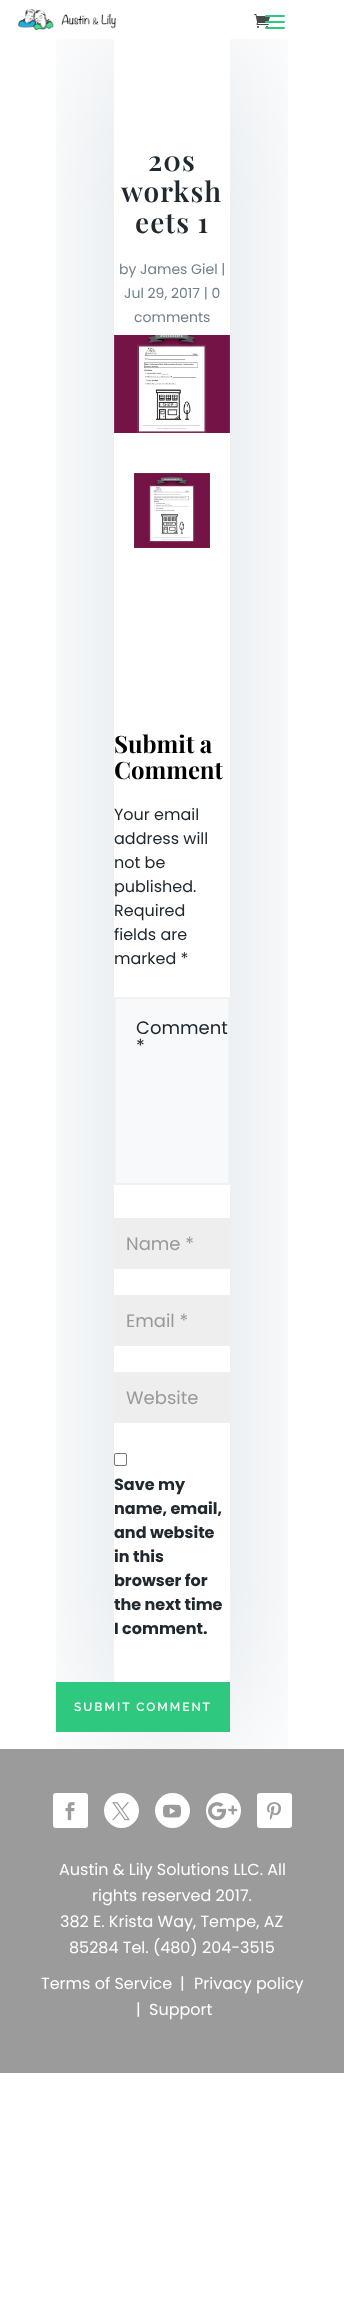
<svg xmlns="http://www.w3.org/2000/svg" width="344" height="2312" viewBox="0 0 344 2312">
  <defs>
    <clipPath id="clip1"><rect x="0" y="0" width="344" height="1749"/></clipPath>
    <clipPath id="clip2"><path d="M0 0H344V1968H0ZM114 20H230V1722H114Z" clip-rule="evenodd"/></clipPath>
    <filter id="blur1" x="-50%" y="-200%" width="200%" height="500%"><feGaussianBlur stdDeviation="75"/></filter>
  </defs>
  <rect width="100%" height="100%" fill="#ffffff"/>
  <rect x="0" y="1749" width="344" height="324" fill="#9b9b9b"/>
  <g clip-path="url(#clip1)">
    <g clip-path="url(#clip2)">
      <rect x="114" y="40" width="116" height="1702" fill="#d6dee4" filter="url(#blur1)"/>
    </g>
  </g>
  <rect x="31" y="0" width="282" height="39" fill="#ffffff" fill-opacity="0.98"/>
  <image x="18" y="9" width="98" height="21" href="img1.png"/>
  <image x="254" y="14" width="16" height="14" href="img2.png"/>
  <image x="265" y="15" width="20" height="14" href="img3.png"/>
  <text x="148" y="171" font-family="Playfair Display" font-size="28" font-weight="600" letter-spacing="1" fill="#20292f">20s</text>
  <text x="121" y="202" font-family="Playfair Display" font-size="28" font-weight="600" letter-spacing="1" fill="#20292f">worksh</text>
  <text x="135" y="233" font-family="Playfair Display" font-size="28" font-weight="600" letter-spacing="1" fill="#20292f">eets 1</text>
  <text x="119" y="274" font-family="Poppins" font-size="14" fill="#71818c">by James Giel |</text>
  <text x="124" y="298" font-family="Poppins" font-size="14" fill="#71818c">Jul 29, 2017 | 0</text>
  <text x="134" y="322" font-family="Poppins" font-size="14" fill="#71818c">comments</text>
  <image x="114" y="335" width="116" height="98" href="img4.png"/>
  <image x="134" y="473" width="76" height="75" href="img5.png"/>
  <text x="114" y="753" font-family="Playfair Display" font-size="24" font-weight="bold" fill="#000000">Submit a</text>
  <text x="114" y="779" font-family="Playfair Display" font-size="24" font-weight="bold" fill="#000000">Comment</text>
  <text x="114" y="820" font-family="Poppins" font-size="16" fill="#20292f">Your email</text>
  <text x="114" y="844" font-family="Poppins" font-size="16" fill="#20292f">address will</text>
  <text x="114" y="868" font-family="Poppins" font-size="16" fill="#20292f">not be</text>
  <text x="114" y="892" font-family="Poppins" font-size="16" fill="#20292f">published.</text>
  <text x="114" y="916" font-family="Poppins" font-size="16" fill="#20292f">Required</text>
  <text x="114" y="940" font-family="Poppins" font-size="16" fill="#20292f">fields are</text>
  <text x="114" y="964" font-family="Poppins" font-size="16" fill="#20292f">marked *</text>
  <rect x="115" y="998" width="114" height="186" fill="#f7f9fb" stroke="#eff1f3" stroke-width="2"/>
  <text x="136" y="1034" font-family="Poppins" font-size="18" fill="#20292f">Comment</text>
  <text x="136" y="1052" font-family="Poppins" font-size="18" fill="#20292f">*</text>
  <rect x="114" y="1218" width="116" height="51" fill="#eeeeee"/>
  <text x="126" y="1250" font-family="Poppins" font-size="18" fill="#999999">Name *</text>
  <rect x="114" y="1295" width="116" height="51" fill="#eeeeee"/>
  <text x="126" y="1327" font-family="Poppins" font-size="18" fill="#999999">Email *</text>
  <rect x="114" y="1372" width="116" height="51" fill="#eeeeee"/>
  <text x="126" y="1404" font-family="Poppins" font-size="18" fill="#999999">Website</text>
  <rect x="114.5" y="1453.5" width="12" height="12" rx="1.5" fill="none" stroke="#767676"/>
  <text x="114" y="1490" font-family="Poppins" font-size="16" font-weight="bold" fill="#20292f">Save my</text>
  <text x="114" y="1514" font-family="Poppins" font-size="16" font-weight="bold" fill="#20292f">name, email,</text>
  <text x="114" y="1538" font-family="Poppins" font-size="16" font-weight="bold" fill="#20292f">and website</text>
  <text x="114" y="1562" font-family="Poppins" font-size="16" font-weight="bold" fill="#20292f">in this</text>
  <text x="114" y="1586" font-family="Poppins" font-size="16" font-weight="bold" fill="#20292f">browser for</text>
  <text x="114" y="1610" font-family="Poppins" font-size="16" font-weight="bold" fill="#20292f">the next time</text>
  <text x="114" y="1634" font-family="Poppins" font-size="16" font-weight="bold" fill="#20292f">I comment.</text>
  <rect x="56" y="1682" width="174" height="50" fill="#2ec87e"/>
  <text x="74" y="1711" font-family="Raleway" font-size="12" font-weight="600" letter-spacing="2" fill="#ffffff">SUBMIT COMMENT</text>
  <rect x="53" y="1793" width="35" height="35" rx="3" fill="#ffffff"/>
  <image x="65" y="1802" width="10" height="19" href="img6.png"/>
  <circle cx="121.5" cy="1810.5" r="17.5" fill="#ffffff"/>
  <image x="112" y="1802" width="18" height="19" href="img7.png"/>
  <circle cx="172.5" cy="1810.5" r="17.5" fill="#ffffff"/>
  <image x="163" y="1804" width="18" height="14" href="img8.png"/>
  <circle cx="223.5" cy="1810.5" r="17.5" fill="#ffffff"/>
  <image x="208" y="1802" width="30" height="19" href="img9.png"/>
  <rect x="257" y="1793" width="35" height="35" rx="3" fill="#ffffff"/>
  <image x="267" y="1802" width="14" height="18" href="img10.png"/>
  <text x="59" y="1875" font-family="Poppins" font-size="16" fill="#ffffff">Austin &amp; Lily Solutions LLC. All</text>
  <text x="92" y="1901" font-family="Poppins" font-size="16" fill="#ffffff">rights reserved 2017.</text>
  <text x="60" y="1927" font-family="Poppins" font-size="16" fill="#ffffff">382 E. Krista Way, Tempe, AZ</text>
  <text x="69" y="1953" font-family="Poppins" font-size="16" fill="#ffffff">85284 Tel. (480) 204-3515</text>
  <text x="41" y="1989" font-family="Poppins" font-size="16" fill="#ffffff">Terms of Service</text>
  <text x="180" y="1989" font-family="Poppins" font-size="16" fill="#ffffff">|</text>
  <text x="194" y="1989" font-family="Poppins" font-size="16" fill="#ffffff">Privacy policy</text>
  <text x="136" y="2015" font-family="Poppins" font-size="16" fill="#ffffff">|</text>
  <text x="149" y="2015" font-family="Poppins" font-size="16" fill="#ffffff">Support</text>
</svg>
